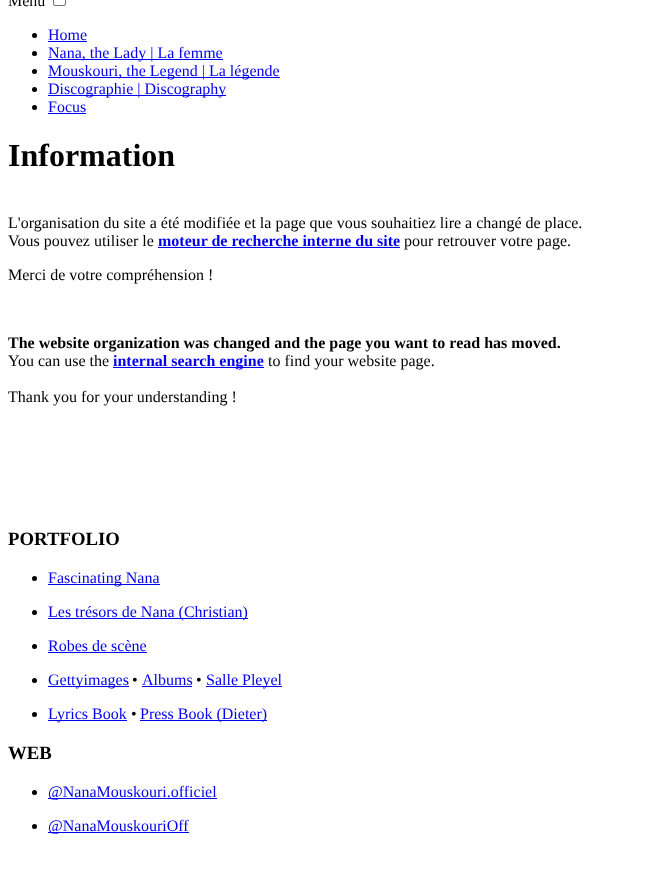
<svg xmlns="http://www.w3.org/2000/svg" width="652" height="871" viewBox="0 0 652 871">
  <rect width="100%" height="100%" fill="#ffffff"/>
  <text x="8" y="6" font-family="Liberation Serif" font-size="16" fill="#000000">Menu</text>
  <rect x="53.5" y="-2.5" width="12" height="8" rx="1.5" fill="none" stroke="#767676"/>
  <circle cx="34.5" cy="35.5" r="2.5" fill="#000000"/>
  <text x="48" y="40" font-family="Liberation Serif" font-size="16" fill="#0000ee">Home</text>
  <rect x="48" y="41" width="39" height="1" fill="#0000ee"/>
  <circle cx="34.5" cy="53.5" r="2.5" fill="#000000"/>
  <rect x="48" y="59" width="175" height="1" fill="#0000ee"/>
  <text x="48" y="58" font-family="Liberation Serif" font-size="16" fill="#0000ee">Nana, the Lady | La femme</text>
  <circle cx="34.5" cy="71.5" r="2.5" fill="#000000"/>
  <rect x="48" y="77" width="232" height="1" fill="#0000ee"/>
  <text x="48" y="76" font-family="Liberation Serif" font-size="16" fill="#0000ee">Mouskouri, the Legend | La légende</text>
  <circle cx="34.5" cy="89.5" r="2.5" fill="#000000"/>
  <rect x="48" y="95" width="178" height="1" fill="#0000ee"/>
  <text x="48" y="94" font-family="Liberation Serif" font-size="16" fill="#0000ee">Discographie | Discography</text>
  <circle cx="34.5" cy="107.5" r="2.5" fill="#000000"/>
  <text x="48" y="112" font-family="Liberation Serif" font-size="16" fill="#0000ee">Focus</text>
  <rect x="48" y="113" width="38" height="1" fill="#0000ee"/>
  <text x="8" y="166" font-family="Liberation Serif" font-size="32" font-weight="bold" fill="#000000">Information</text>
  <text x="8" y="228" font-family="Liberation Serif" font-size="16" fill="#000000">L'organisation du site a été modifiée et la page que vous souhaitiez lire a changé de place.</text>
  <text x="8" y="246" font-family="Liberation Serif" font-size="16" fill="#000000">Vous pouvez utiliser le</text>
  <text x="158" y="246" font-family="Liberation Serif" font-size="16" font-weight="bold" fill="#0000ee">moteur de recherche interne du site</text>
  <rect x="158" y="247" width="242" height="1" fill="#0000ee"/>
  <text x="404" y="246" font-family="Liberation Serif" font-size="16" fill="#000000">pour retrouver votre page.</text>
  <text x="8" y="280" font-family="Liberation Serif" font-size="16" fill="#000000">Merci de votre compréhension !</text>
  <text x="8" y="348" font-family="Liberation Serif" font-size="16" font-weight="bold" fill="#000000">The website organization was changed and the page you want to read has moved.</text>
  <text x="8" y="366" font-family="Liberation Serif" font-size="16" fill="#000000">You can use the</text>
  <rect x="113" y="367" width="151" height="1" fill="#0000ee"/>
  <text x="113" y="366" font-family="Liberation Serif" font-size="16" font-weight="bold" fill="#0000ee">internal search engine</text>
  <text x="268" y="366" font-family="Liberation Serif" font-size="16" fill="#000000">to find your website page.</text>
  <text x="8" y="402" font-family="Liberation Serif" font-size="16" fill="#000000">Thank you for your understanding !</text>
  <text x="8" y="545" font-family="Liberation Serif" font-size="18.75" font-weight="bold" fill="#000000">PORTFOLIO</text>
  <circle cx="34.5" cy="578.5" r="2.5" fill="#000000"/>
  <rect x="48" y="584" width="112" height="1" fill="#0000ee"/>
  <text x="48" y="583" font-family="Liberation Serif" font-size="16" fill="#0000ee">Fascinating Nana</text>
  <circle cx="34.5" cy="612.5" r="2.5" fill="#000000"/>
  <rect x="48" y="618" width="200" height="1" fill="#0000ee"/>
  <text x="48" y="617" font-family="Liberation Serif" font-size="16" fill="#0000ee">Les trésors de Nana (Christian)</text>
  <circle cx="34.5" cy="646.5" r="2.5" fill="#000000"/>
  <text x="48" y="651" font-family="Liberation Serif" font-size="16" fill="#0000ee">Robes de scène</text>
  <rect x="48" y="652" width="99" height="1" fill="#0000ee"/>
  <circle cx="34.5" cy="680.5" r="2.5" fill="#000000"/>
  <rect x="48" y="686" width="81" height="1" fill="#0000ee"/>
  <text x="48" y="685" font-family="Liberation Serif" font-size="16" fill="#0000ee">Gettyimages</text>
  <text x="132" y="685" font-family="Liberation Serif" font-size="16" fill="#000000">•</text>
  <text x="142" y="685" font-family="Liberation Serif" font-size="16" fill="#0000ee">Albums</text>
  <rect x="142" y="686" width="50" height="1" fill="#0000ee"/>
  <text x="196" y="685" font-family="Liberation Serif" font-size="16" fill="#000000">•</text>
  <rect x="206" y="686" width="76" height="1" fill="#0000ee"/>
  <text x="206" y="685" font-family="Liberation Serif" font-size="16" fill="#0000ee">Salle Pleyel</text>
  <circle cx="34.5" cy="714.5" r="2.5" fill="#000000"/>
  <rect x="48" y="720" width="79" height="1" fill="#0000ee"/>
  <text x="48" y="719" font-family="Liberation Serif" font-size="16" fill="#0000ee">Lyrics Book</text>
  <text x="131" y="719" font-family="Liberation Serif" font-size="16" fill="#000000">•</text>
  <rect x="140" y="720" width="127" height="1" fill="#0000ee"/>
  <text x="140" y="719" font-family="Liberation Serif" font-size="16" fill="#0000ee">Press Book (Dieter)</text>
  <text x="8" y="759" font-family="Liberation Serif" font-size="18.75" font-weight="bold" fill="#000000">WEB</text>
  <circle cx="34.5" cy="792.5" r="2.5" fill="#000000"/>
  <rect x="48" y="798" width="169" height="1" fill="#0000ee"/>
  <text x="48" y="797" font-family="Liberation Serif" font-size="16" fill="#0000ee">@NanaMouskouri.officiel</text>
  <circle cx="34.5" cy="826.5" r="2.5" fill="#000000"/>
  <rect x="48" y="832" width="141" height="1" fill="#0000ee"/>
  <text x="48" y="831" font-family="Liberation Serif" font-size="16" fill="#0000ee">@NanaMouskouriOff</text>
</svg>
